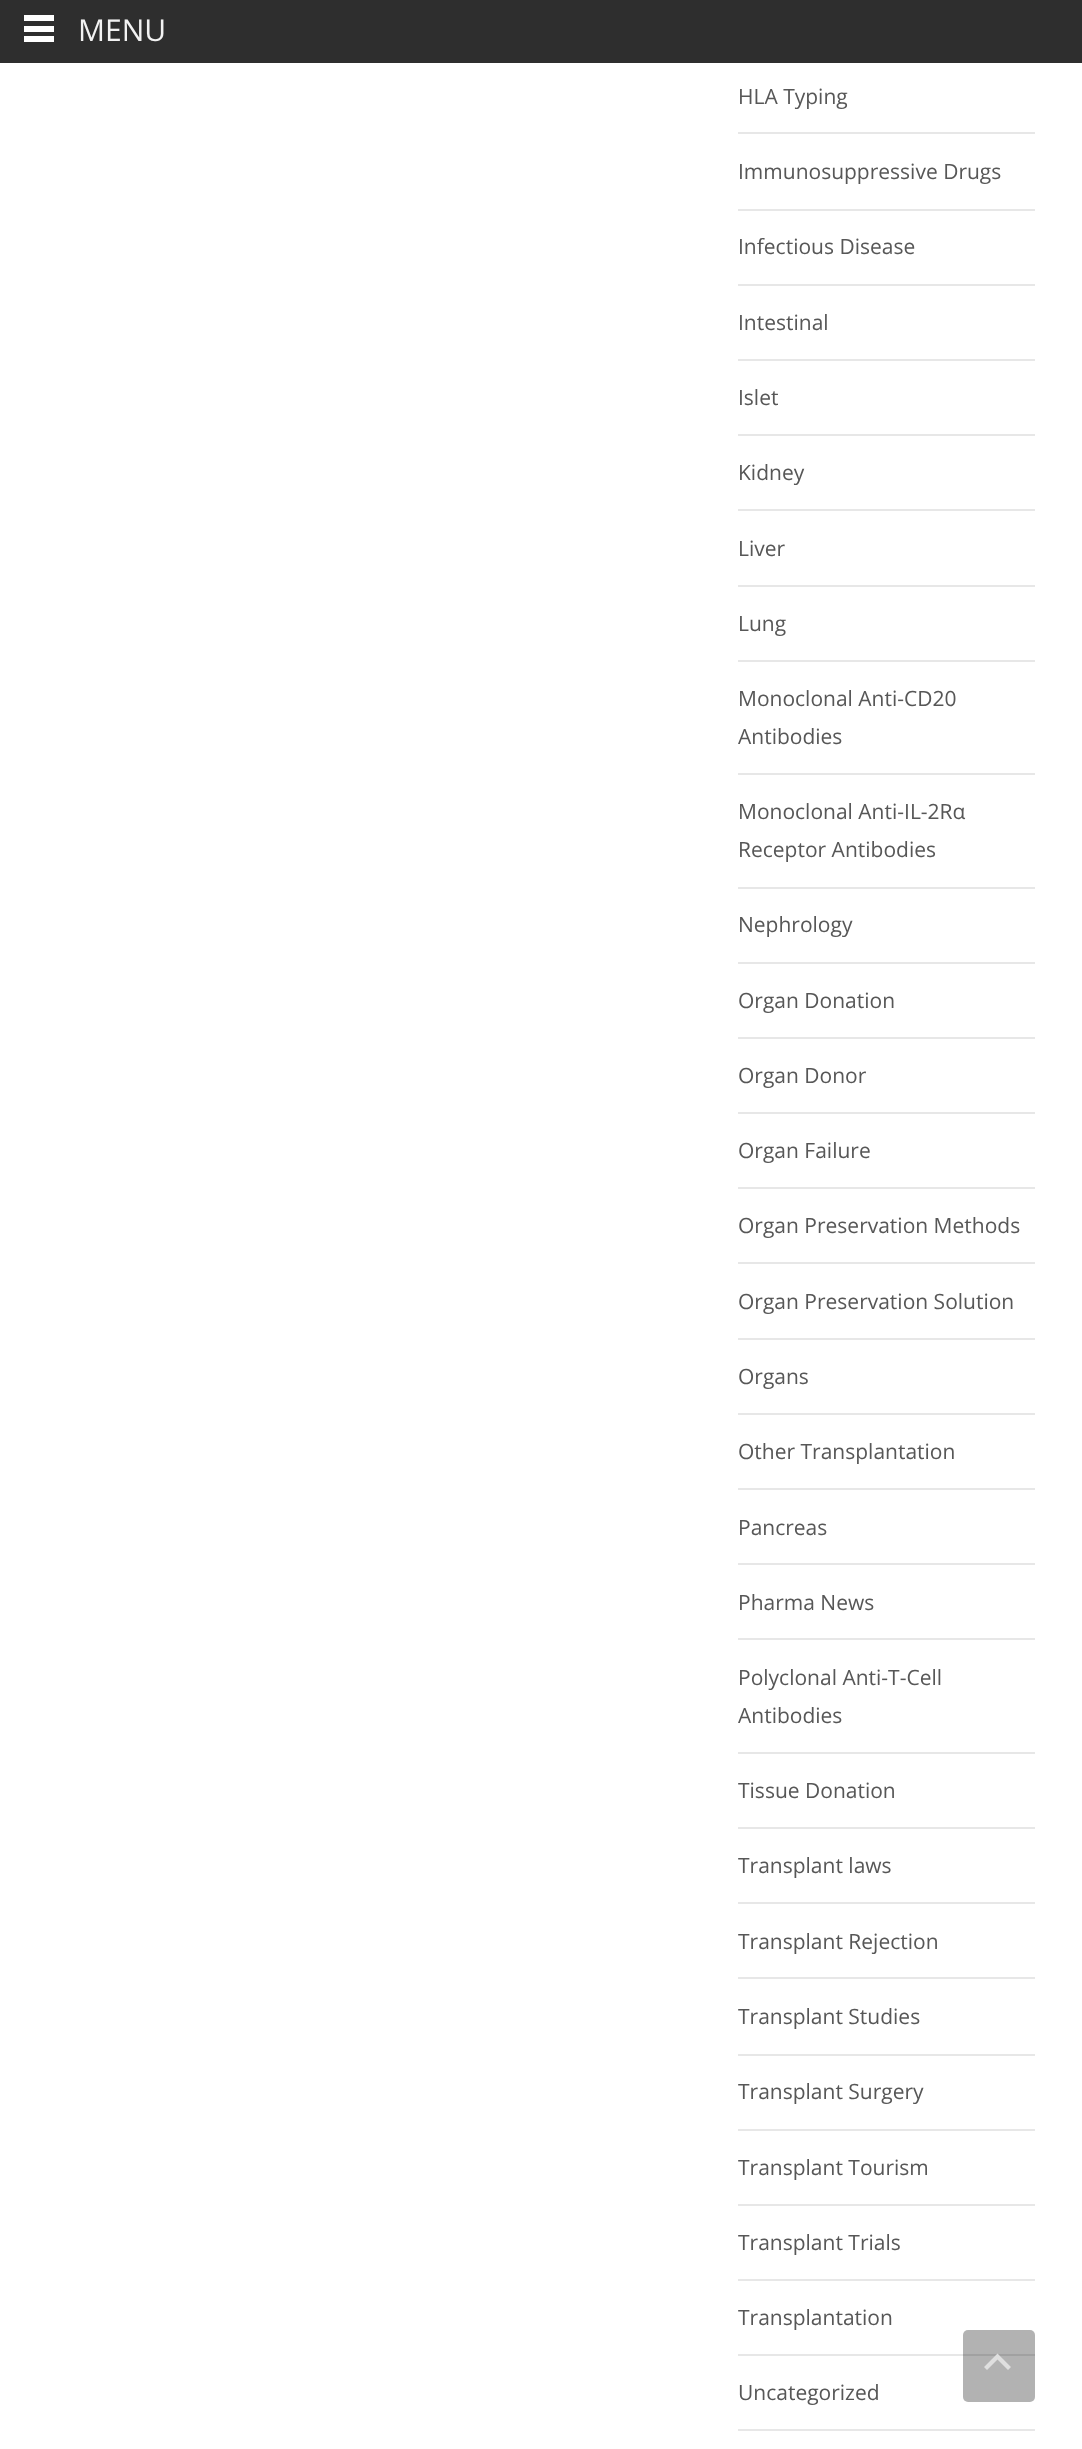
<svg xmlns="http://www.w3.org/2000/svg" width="1082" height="2449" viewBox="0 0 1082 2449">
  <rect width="100%" height="100%" fill="#ffffff"/>
  <rect x="0" y="0" width="1082" height="63" fill="#2e2e2e"/>
  <rect x="24" y="15" width="30" height="6" fill="#ffffff"/>
  <rect x="24" y="26" width="30" height="6" fill="#ffffff"/>
  <rect x="24" y="36" width="30" height="6" fill="#ffffff"/>
  <text x="78" y="41" font-family="Open Sans" font-size="30" fill="#f2f2f2">MENU</text>
  <rect x="738" y="132" width="297" height="2" fill="#e7e7e7"/>
  <text x="738" y="104" font-family="Open Sans" font-size="21" fill="#575757">HLA Typing</text>
  <rect x="738" y="209" width="297" height="2" fill="#e7e7e7"/>
  <text x="738" y="179" font-family="Open Sans" font-size="21" fill="#575757">Immunosuppressive Drugs</text>
  <rect x="738" y="284" width="297" height="2" fill="#e7e7e7"/>
  <text x="738" y="254" font-family="Open Sans" font-size="21" fill="#575757">Infectious Disease</text>
  <rect x="738" y="359" width="297" height="2" fill="#e7e7e7"/>
  <text x="738" y="330" font-family="Open Sans" font-size="21" fill="#575757">Intestinal</text>
  <rect x="738" y="434" width="297" height="2" fill="#e7e7e7"/>
  <text x="738" y="405" font-family="Open Sans" font-size="21" fill="#575757">Islet</text>
  <rect x="738" y="509" width="297" height="2" fill="#e7e7e7"/>
  <text x="738" y="480" font-family="Open Sans" font-size="21" fill="#575757">Kidney</text>
  <rect x="738" y="585" width="297" height="2" fill="#e7e7e7"/>
  <text x="738" y="556" font-family="Open Sans" font-size="21" fill="#575757">Liver</text>
  <rect x="738" y="660" width="297" height="2" fill="#e7e7e7"/>
  <text x="738" y="631" font-family="Open Sans" font-size="21" fill="#575757">Lung</text>
  <rect x="738" y="773" width="297" height="2" fill="#e7e7e7"/>
  <text x="738" y="706" font-family="Open Sans" font-size="21" fill="#575757">Monoclonal Anti-CD20</text>
  <text x="738" y="744" font-family="Open Sans" font-size="21" fill="#575757">Antibodies</text>
  <rect x="738" y="887" width="297" height="2" fill="#e7e7e7"/>
  <text x="738" y="819" font-family="Open Sans" font-size="21" fill="#575757">Monoclonal Anti-IL-2Rα</text>
  <text x="738" y="857" font-family="Open Sans" font-size="21" fill="#575757">Receptor Antibodies</text>
  <rect x="738" y="962" width="297" height="2" fill="#e7e7e7"/>
  <text x="738" y="932" font-family="Open Sans" font-size="21" fill="#575757">Nephrology</text>
  <rect x="738" y="1037" width="297" height="2" fill="#e7e7e7"/>
  <text x="738" y="1008" font-family="Open Sans" font-size="21" fill="#575757">Organ Donation</text>
  <rect x="738" y="1112" width="297" height="2" fill="#e7e7e7"/>
  <text x="738" y="1083" font-family="Open Sans" font-size="21" fill="#575757">Organ Donor</text>
  <rect x="738" y="1187" width="297" height="2" fill="#e7e7e7"/>
  <text x="738" y="1158" font-family="Open Sans" font-size="21" fill="#575757">Organ Failure</text>
  <rect x="738" y="1262" width="297" height="2" fill="#e7e7e7"/>
  <text x="738" y="1233" font-family="Open Sans" font-size="21" fill="#575757">Organ Preservation Methods</text>
  <rect x="738" y="1338" width="297" height="2" fill="#e7e7e7"/>
  <text x="738" y="1309" font-family="Open Sans" font-size="21" fill="#575757">Organ Preservation Solution</text>
  <rect x="738" y="1413" width="297" height="2" fill="#e7e7e7"/>
  <text x="738" y="1384" font-family="Open Sans" font-size="21" fill="#575757">Organs</text>
  <rect x="738" y="1488" width="297" height="2" fill="#e7e7e7"/>
  <text x="738" y="1459" font-family="Open Sans" font-size="21" fill="#575757">Other Transplantation</text>
  <rect x="738" y="1563" width="297" height="2" fill="#e7e7e7"/>
  <text x="738" y="1535" font-family="Open Sans" font-size="21" fill="#575757">Pancreas</text>
  <rect x="738" y="1638" width="297" height="2" fill="#e7e7e7"/>
  <text x="738" y="1610" font-family="Open Sans" font-size="21" fill="#575757">Pharma News</text>
  <rect x="738" y="1752" width="297" height="2" fill="#e7e7e7"/>
  <text x="738" y="1685" font-family="Open Sans" font-size="21" fill="#575757">Polyclonal Anti-T-Cell</text>
  <text x="738" y="1723" font-family="Open Sans" font-size="21" fill="#575757">Antibodies</text>
  <rect x="738" y="1827" width="297" height="2" fill="#e7e7e7"/>
  <text x="738" y="1798" font-family="Open Sans" font-size="21" fill="#575757">Tissue Donation</text>
  <rect x="738" y="1902" width="297" height="2" fill="#e7e7e7"/>
  <text x="738" y="1873" font-family="Open Sans" font-size="21" fill="#575757">Transplant laws</text>
  <rect x="738" y="1977" width="297" height="2" fill="#e7e7e7"/>
  <text x="738" y="1949" font-family="Open Sans" font-size="21" fill="#575757">Transplant Rejection</text>
  <rect x="738" y="2054" width="297" height="2" fill="#e7e7e7"/>
  <text x="738" y="2024" font-family="Open Sans" font-size="21" fill="#575757">Transplant Studies</text>
  <rect x="738" y="2129" width="297" height="2" fill="#e7e7e7"/>
  <text x="738" y="2099" font-family="Open Sans" font-size="21" fill="#575757">Transplant Surgery</text>
  <rect x="738" y="2204" width="297" height="2" fill="#e7e7e7"/>
  <text x="738" y="2175" font-family="Open Sans" font-size="21" fill="#575757">Transplant Tourism</text>
  <rect x="738" y="2279" width="297" height="2" fill="#e7e7e7"/>
  <text x="738" y="2250" font-family="Open Sans" font-size="21" fill="#575757">Transplant Trials</text>
  <rect x="738" y="2354" width="297" height="2" fill="#e7e7e7"/>
  <text x="738" y="2325" font-family="Open Sans" font-size="21" fill="#575757">Transplantation</text>
  <rect x="738" y="2429" width="297" height="2" fill="#e7e7e7"/>
  <text x="738" y="2400" font-family="Open Sans" font-size="21" fill="#575757">Uncategorized</text>
  <rect x="963" y="2330" width="72" height="72" rx="5" fill="#000000" fill-opacity="0.3"/>
  <path d="M984 2367L997.5 2353.5L1011 2367L1008 2370L997.5 2359.5L987 2370Z" fill="#dfdfdf"/>
</svg>
